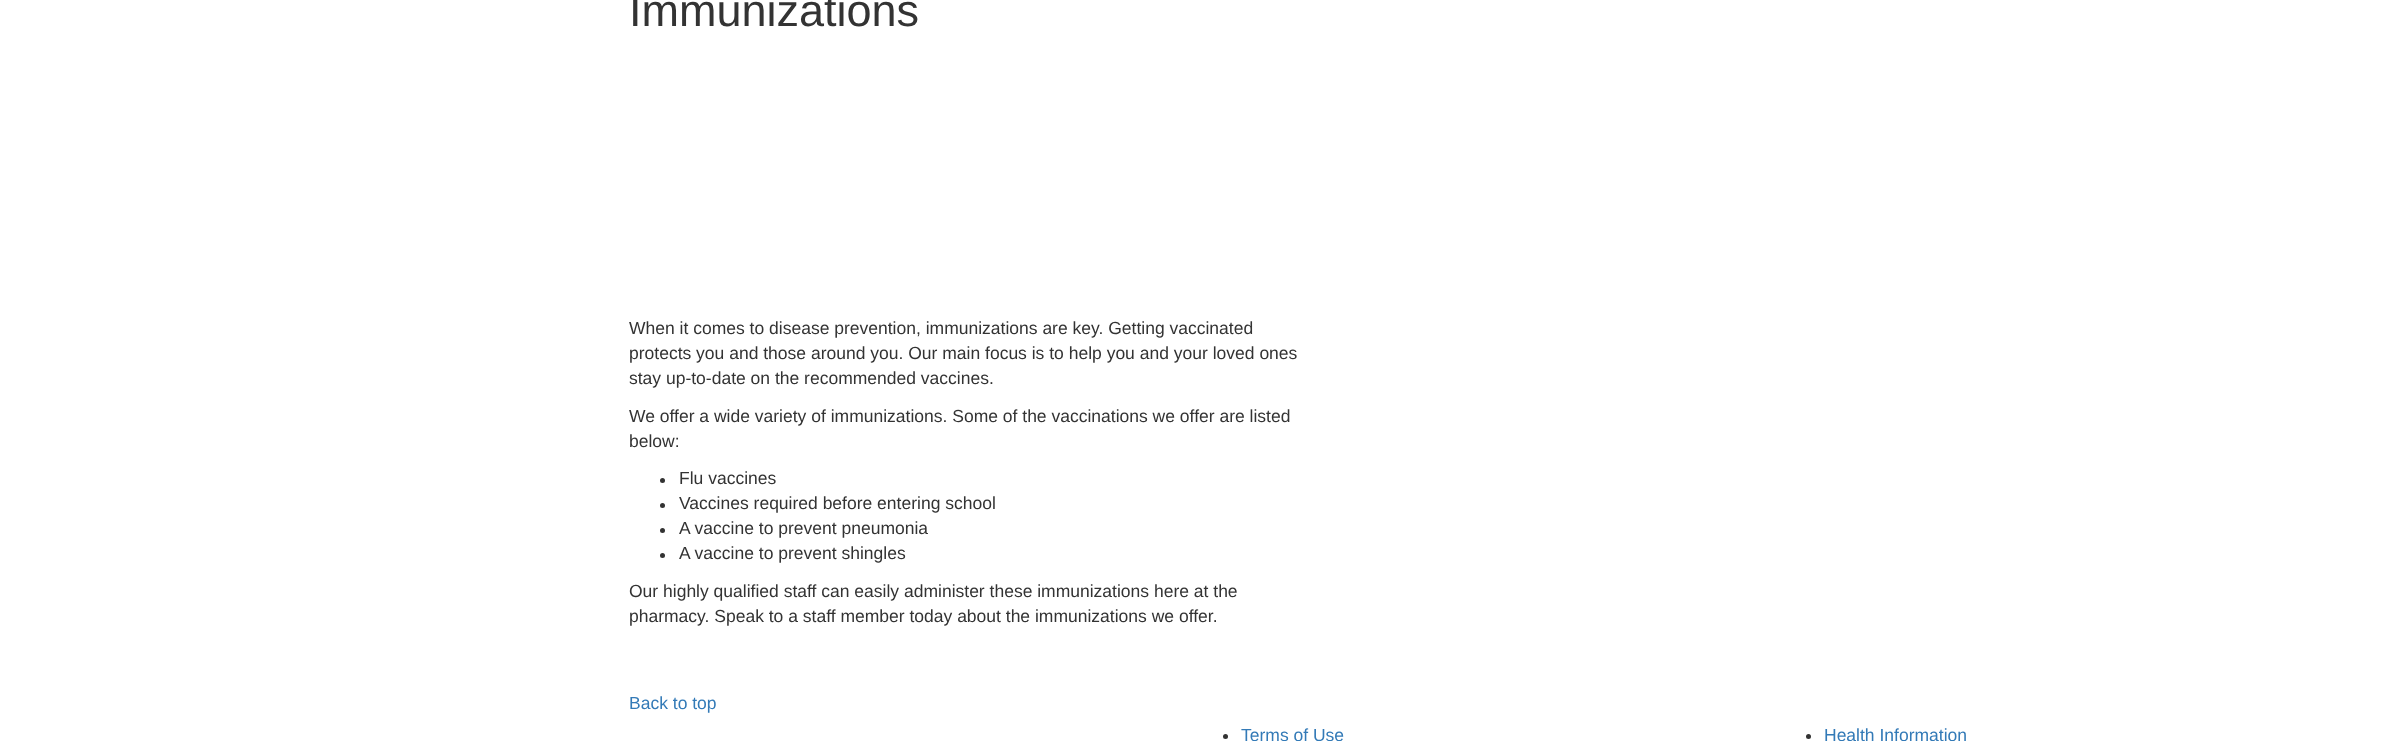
<svg xmlns="http://www.w3.org/2000/svg" width="2407" height="741" viewBox="0 0 2407 741">
  <rect width="100%" height="100%" fill="#ffffff"/>
  <text x="629" y="26" font-family="Liberation Sans" font-size="45" fill="#333333">Immunizations</text>
  <text x="629" y="334" font-family="Liberation Sans" font-size="17.5" fill="#333333">When it comes to disease prevention, immunizations are key. Getting vaccinated</text>
  <text x="629" y="359" font-family="Liberation Sans" font-size="17.5" fill="#333333">protects you and those around you. Our main focus is to help you and your loved ones</text>
  <text x="629" y="384" font-family="Liberation Sans" font-size="17.5" fill="#333333">stay up-to-date on the recommended vaccines.</text>
  <text x="629" y="422" font-family="Liberation Sans" font-size="17.5" fill="#333333">We offer a wide variety of immunizations. Some of the vaccinations we offer are listed</text>
  <text x="629" y="447" font-family="Liberation Sans" font-size="17.5" fill="#333333">below:</text>
  <circle cx="662.5" cy="480.5" r="2.5" fill="#333333"/>
  <text x="679" y="484" font-family="Liberation Sans" font-size="17.5" fill="#333333">Flu vaccines</text>
  <circle cx="662.5" cy="505.5" r="2.5" fill="#333333"/>
  <text x="679" y="509" font-family="Liberation Sans" font-size="17.5" fill="#333333">Vaccines required before entering school</text>
  <circle cx="662.5" cy="530.5" r="2.5" fill="#333333"/>
  <text x="679" y="534" font-family="Liberation Sans" font-size="17.5" fill="#333333">A vaccine to prevent pneumonia</text>
  <circle cx="662.5" cy="555.5" r="2.5" fill="#333333"/>
  <text x="679" y="559" font-family="Liberation Sans" font-size="17.5" fill="#333333">A vaccine to prevent shingles</text>
  <text x="629" y="597" font-family="Liberation Sans" font-size="17.5" fill="#333333">Our highly qualified staff can easily administer these immunizations here at the</text>
  <text x="629" y="622" font-family="Liberation Sans" font-size="17.5" fill="#333333">pharmacy. Speak to a staff member today about the immunizations we offer.</text>
  <text x="629" y="709" font-family="Liberation Sans" font-size="17.5" fill="#337ab7">Back to top</text>
  <circle cx="1225.5" cy="736.5" r="2.5" fill="#333333"/>
  <text x="1241" y="741" font-family="Liberation Sans" font-size="17.5" fill="#337ab7">Terms of Use</text>
  <circle cx="1808.5" cy="736.5" r="2.5" fill="#333333"/>
  <text x="1824" y="741" font-family="Liberation Sans" font-size="17.5" fill="#337ab7">Health Information</text>
</svg>
